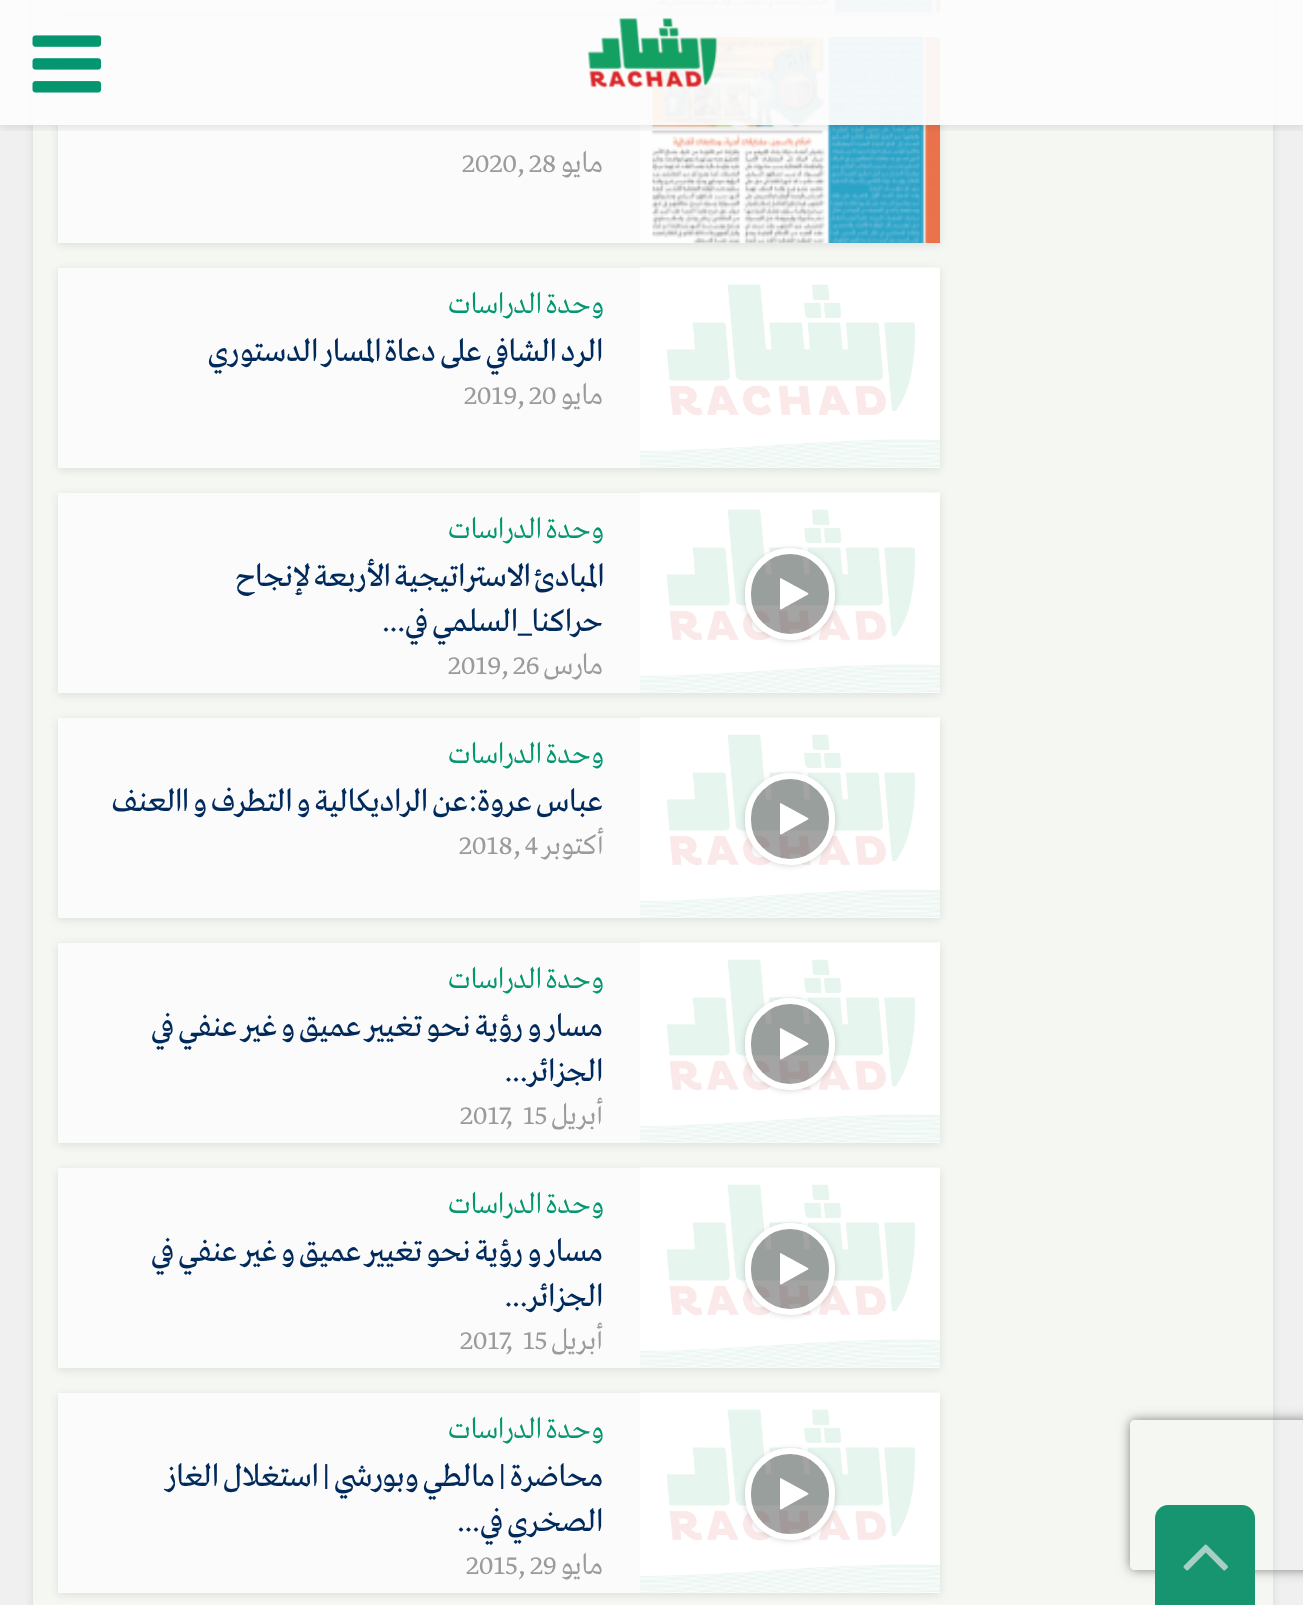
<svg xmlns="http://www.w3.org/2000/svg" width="1303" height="1605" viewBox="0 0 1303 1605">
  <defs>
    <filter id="blur1" x="-50%" y="-200%" width="200%" height="500%"><feGaussianBlur stdDeviation="4"/></filter>
    <clipPath id="clip1"><path d="M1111 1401H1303V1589H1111ZM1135 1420H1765C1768 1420 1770 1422 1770 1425V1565C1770 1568 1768 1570 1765 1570H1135C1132 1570 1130 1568 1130 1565V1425C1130 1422 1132 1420 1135 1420Z" clip-rule="evenodd"/></clipPath>
    <filter id="blur2" x="-50%" y="-200%" width="200%" height="500%"><feGaussianBlur stdDeviation="6"/></filter>
    <clipPath id="clip2"><rect x="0" y="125" width="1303" height="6"/></clipPath>
    <clipPath id="clip3"><path d="M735 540H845V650H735ZM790 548C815 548 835 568 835 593V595C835 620 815 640 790 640C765 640 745 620 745 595V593C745 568 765 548 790 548Z" clip-rule="evenodd"/></clipPath>
    <filter id="blur3" x="-50%" y="-200%" width="200%" height="500%"><feGaussianBlur stdDeviation="3"/></filter>
    <clipPath id="clip4"><path d="M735 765H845V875H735ZM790 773C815 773 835 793 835 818V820C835 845 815 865 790 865C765 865 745 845 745 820V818C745 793 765 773 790 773Z" clip-rule="evenodd"/></clipPath>
    <clipPath id="clip5"><path d="M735 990H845V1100H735ZM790 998C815 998 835 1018 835 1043V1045C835 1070 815 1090 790 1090C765 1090 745 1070 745 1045V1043C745 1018 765 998 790 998Z" clip-rule="evenodd"/></clipPath>
    <clipPath id="clip6"><path d="M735 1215H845V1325H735ZM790 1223C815 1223 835 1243 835 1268V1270C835 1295 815 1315 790 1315C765 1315 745 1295 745 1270V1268C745 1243 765 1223 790 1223Z" clip-rule="evenodd"/></clipPath>
    <clipPath id="clip7"><path d="M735 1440H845V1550H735ZM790 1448C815 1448 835 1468 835 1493V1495C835 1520 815 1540 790 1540C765 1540 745 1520 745 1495V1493C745 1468 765 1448 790 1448Z" clip-rule="evenodd"/></clipPath>
  </defs>
  <rect width="100%" height="100%" fill="#f0f0f0"/>
  <rect x="33" y="-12" width="1240" height="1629" fill="#000000" fill-opacity="0.1" filter="url(#blur1)"/>
  <rect x="33" y="0" width="1240" height="1605" fill="#f5f8f2"/>
  <g clip-path="url(#clip1)">
    <rect x="1130" y="1420" width="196" height="150" rx="5" fill="#808080" filter="url(#blur2)"/>
  </g>
  <rect x="58" y="-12" width="882" height="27" fill="#000000" fill-opacity="0.1" filter="url(#blur1)"/>
  <rect x="58" y="0" width="882" height="13" fill="#fbfbfb"/>
  <image x="652" y="0" width="288" height="13" href="img3.png"/>
  <rect x="58" y="40" width="882" height="205" fill="#000000" fill-opacity="0.1" filter="url(#blur1)"/>
  <rect x="58" y="38" width="582" height="205" fill="#fbfbfb"/>
  <image x="640" y="37" width="300" height="206" href="img4.png"/>
  <g clip-path="url(#clip2)">
    <rect x="0" y="3" width="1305" height="125" fill="#000000" fill-opacity="0.1" filter="url(#blur1)"/>
  </g>
  <rect x="0" y="0" width="1303" height="125" fill="#fcfcfc" fill-opacity="0.95"/>
  <image x="587" y="18" width="131" height="70" href="img1.png"/>
  <image x="32" y="35" width="70" height="58" href="img2.png"/>
  <text x="603" y="172" font-family="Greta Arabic" font-size="30" font-weight="300" direction="rtl" fill="#9b9b9b">مايو</text>
  <text x="529" y="172" font-family="Greta Arabic" font-size="30" font-weight="300" fill="#9b9b9b">28</text>
  <text x="462" y="172" font-family="Greta Arabic" font-size="30" font-weight="300" fill="#9b9b9b">2020,</text>
  <rect x="58" y="270" width="882" height="200" fill="#000000" fill-opacity="0.1" filter="url(#blur1)"/>
  <rect x="58" y="268" width="882" height="200" fill="#fbfbfb"/>
  <image x="640" y="267" width="300" height="201" href="img5.png"/>
  <text x="603" y="313" word-spacing="-2.5" font-family="Greta Arabic" font-size="30" font-weight="300" direction="rtl" fill="#03966f">وحدة الدراسات</text>
  <text x="603" y="361" word-spacing="-2.5" font-family="Greta Arabic" font-size="32.5" direction="rtl" fill="#002a5b">الرد الشافي على دعاة المسار الدستوري</text>
  <text x="603" y="404" font-family="Greta Arabic" font-size="30" font-weight="300" direction="rtl" fill="#9b9b9b">مايو</text>
  <text x="529" y="404" font-family="Greta Arabic" font-size="30" font-weight="300" fill="#9b9b9b">20</text>
  <text x="464" y="404" font-family="Greta Arabic" font-size="30" font-weight="300" fill="#9b9b9b">2019,</text>
  <rect x="58" y="495" width="882" height="200" fill="#000000" fill-opacity="0.1" filter="url(#blur1)"/>
  <rect x="58" y="493" width="882" height="200" fill="#fbfbfb"/>
  <image x="640" y="492" width="300" height="201" href="img5.png"/>
  <g clip-path="url(#clip3)">
    <rect x="745" y="550" width="90" height="90" rx="45" fill="#000000" fill-opacity="0.2" filter="url(#blur3)"/>
  </g>
  <rect x="748" y="551" width="84" height="86" rx="42" fill="#4a4a4a" fill-opacity="0.5" stroke="#ffffff" stroke-width="6"/>
  <path d="M808 594.5L785.5 607C785 607 781 610.5 780 609V578.5L780.5 578L808 593L808.5 593.5Z" fill="#ffffff"/>
  <text x="603" y="538" word-spacing="-2.5" font-family="Greta Arabic" font-size="30" font-weight="300" direction="rtl" fill="#03966f">وحدة الدراسات</text>
  <text x="603" y="586" word-spacing="-2.5" font-family="Greta Arabic" font-size="32.5" direction="rtl" fill="#002a5b">المبادئ الاستراتيجية الأربعة لإنجاح</text>
  <text x="603" y="631" word-spacing="-2.5" font-family="Greta Arabic" font-size="32.5" direction="rtl" fill="#002a5b">حراكنا_السلمي في...</text>
  <text x="603" y="674" font-family="Greta Arabic" font-size="30" font-weight="300" direction="rtl" fill="#9b9b9b">مارس</text>
  <text x="513" y="674" font-family="Greta Arabic" font-size="30" font-weight="300" fill="#9b9b9b">26</text>
  <text x="448" y="674" font-family="Greta Arabic" font-size="30" font-weight="300" fill="#9b9b9b">2019,</text>
  <rect x="58" y="720" width="882" height="200" fill="#000000" fill-opacity="0.1" filter="url(#blur1)"/>
  <rect x="58" y="718" width="882" height="200" fill="#fbfbfb"/>
  <image x="640" y="717" width="300" height="201" href="img5.png"/>
  <g clip-path="url(#clip4)">
    <rect x="745" y="775" width="90" height="90" rx="45" fill="#000000" fill-opacity="0.2" filter="url(#blur3)"/>
  </g>
  <rect x="748" y="776" width="84" height="86" rx="42" fill="#4a4a4a" fill-opacity="0.5" stroke="#ffffff" stroke-width="6"/>
  <path d="M808 819.5L785.5 832C785 832 781 835.5 780 834V803.5L780.5 803L808 818L808.5 818.5Z" fill="#ffffff"/>
  <text x="603" y="763" word-spacing="-2.5" font-family="Greta Arabic" font-size="30" font-weight="300" direction="rtl" fill="#03966f">وحدة الدراسات</text>
  <text x="603" y="811" word-spacing="-2.5" font-family="Greta Arabic" font-size="32.5" direction="rtl" fill="#002a5b">عباس عروة:عن الراديكالية و التطرف و االعنف</text>
  <text x="603" y="854" font-family="Greta Arabic" font-size="30" font-weight="300" direction="rtl" fill="#9b9b9b">أكتوبر</text>
  <text x="525" y="854" font-family="Greta Arabic" font-size="30" font-weight="300" fill="#9b9b9b">4</text>
  <text x="459" y="854" font-family="Greta Arabic" font-size="30" font-weight="300" fill="#9b9b9b">2018,</text>
  <rect x="58" y="945" width="882" height="200" fill="#000000" fill-opacity="0.1" filter="url(#blur1)"/>
  <rect x="58" y="943" width="882" height="200" fill="#fbfbfb"/>
  <image x="640" y="942" width="300" height="201" href="img5.png"/>
  <g clip-path="url(#clip5)">
    <rect x="745" y="1000" width="90" height="90" rx="45" fill="#000000" fill-opacity="0.2" filter="url(#blur3)"/>
  </g>
  <rect x="748" y="1001" width="84" height="86" rx="42" fill="#4a4a4a" fill-opacity="0.5" stroke="#ffffff" stroke-width="6"/>
  <path d="M808 1044.5L785.5 1057C785 1057 781 1060.5 780 1059V1028.5L780.5 1028L808 1043L808.5 1043.5Z" fill="#ffffff"/>
  <text x="603" y="988" word-spacing="-2.5" font-family="Greta Arabic" font-size="30" font-weight="300" direction="rtl" fill="#03966f">وحدة الدراسات</text>
  <text x="603" y="1036" word-spacing="-2.5" font-family="Greta Arabic" font-size="32.5" direction="rtl" fill="#002a5b">مسار و رؤية نحو تغيير عميق و غير عنفي في</text>
  <text x="603" y="1081" font-family="Greta Arabic" font-size="32.5" direction="rtl" fill="#002a5b">الجزائر...</text>
  <text x="603" y="1124" font-family="Greta Arabic" font-size="30" font-weight="300" direction="rtl" fill="#9b9b9b">أبريل</text>
  <text x="523" y="1124" font-family="Greta Arabic" font-size="30" font-weight="300" fill="#9b9b9b">15</text>
  <text x="460" y="1124" font-family="Greta Arabic" font-size="30" font-weight="300" fill="#9b9b9b">2017,</text>
  <rect x="58" y="1170" width="882" height="200" fill="#000000" fill-opacity="0.1" filter="url(#blur1)"/>
  <rect x="58" y="1168" width="882" height="200" fill="#fbfbfb"/>
  <image x="640" y="1167" width="300" height="201" href="img5.png"/>
  <g clip-path="url(#clip6)">
    <rect x="745" y="1225" width="90" height="90" rx="45" fill="#000000" fill-opacity="0.2" filter="url(#blur3)"/>
  </g>
  <rect x="748" y="1226" width="84" height="86" rx="42" fill="#4a4a4a" fill-opacity="0.5" stroke="#ffffff" stroke-width="6"/>
  <path d="M808 1269.5L785.5 1282C785 1282 781 1285.5 780 1284V1253.5L780.5 1253L808 1268L808.5 1268.5Z" fill="#ffffff"/>
  <text x="603" y="1213" word-spacing="-2.5" font-family="Greta Arabic" font-size="30" font-weight="300" direction="rtl" fill="#03966f">وحدة الدراسات</text>
  <text x="603" y="1261" word-spacing="-2.5" font-family="Greta Arabic" font-size="32.5" direction="rtl" fill="#002a5b">مسار و رؤية نحو تغيير عميق و غير عنفي في</text>
  <text x="603" y="1306" font-family="Greta Arabic" font-size="32.5" direction="rtl" fill="#002a5b">الجزائر...</text>
  <text x="603" y="1349" font-family="Greta Arabic" font-size="30" font-weight="300" direction="rtl" fill="#9b9b9b">أبريل</text>
  <text x="523" y="1349" font-family="Greta Arabic" font-size="30" font-weight="300" fill="#9b9b9b">15</text>
  <text x="460" y="1349" font-family="Greta Arabic" font-size="30" font-weight="300" fill="#9b9b9b">2017,</text>
  <rect x="58" y="1395" width="882" height="200" fill="#000000" fill-opacity="0.1" filter="url(#blur1)"/>
  <rect x="58" y="1393" width="882" height="200" fill="#fbfbfb"/>
  <image x="640" y="1392" width="300" height="201" href="img5.png"/>
  <g clip-path="url(#clip7)">
    <rect x="745" y="1450" width="90" height="90" rx="45" fill="#000000" fill-opacity="0.2" filter="url(#blur3)"/>
  </g>
  <rect x="748" y="1451" width="84" height="86" rx="42" fill="#4a4a4a" fill-opacity="0.5" stroke="#ffffff" stroke-width="6"/>
  <path d="M808 1494.5L785.5 1507C785 1507 781 1510.5 780 1509V1478.5L780.5 1478L808 1493L808.5 1493.5Z" fill="#ffffff"/>
  <text x="603" y="1438" word-spacing="-2.5" font-family="Greta Arabic" font-size="30" font-weight="300" direction="rtl" fill="#03966f">وحدة الدراسات</text>
  <text x="603" y="1486" word-spacing="-2.5" font-family="Greta Arabic" font-size="32.5" direction="rtl" fill="#002a5b">محاضرة | مالطي وبورشي | استغلال الغاز</text>
  <text x="603" y="1531" word-spacing="-2.5" font-family="Greta Arabic" font-size="32.5" direction="rtl" fill="#002a5b">الصخري في...</text>
  <text x="603" y="1574" font-family="Greta Arabic" font-size="30" font-weight="300" direction="rtl" fill="#9b9b9b">مايو</text>
  <text x="530" y="1574" font-family="Greta Arabic" font-size="30" font-weight="300" fill="#9b9b9b">29</text>
  <text x="466" y="1574" font-family="Greta Arabic" font-size="30" font-weight="300" fill="#9b9b9b">2015,</text>
  <path d="M1168 1505H1242C1249 1505 1255 1511 1255 1518V1605H1155V1518C1155 1511 1161 1505 1168 1505Z" fill="#169570"/>
  <image x="1183" y="1544" width="45" height="27" href="img6.png"/>
</svg>
